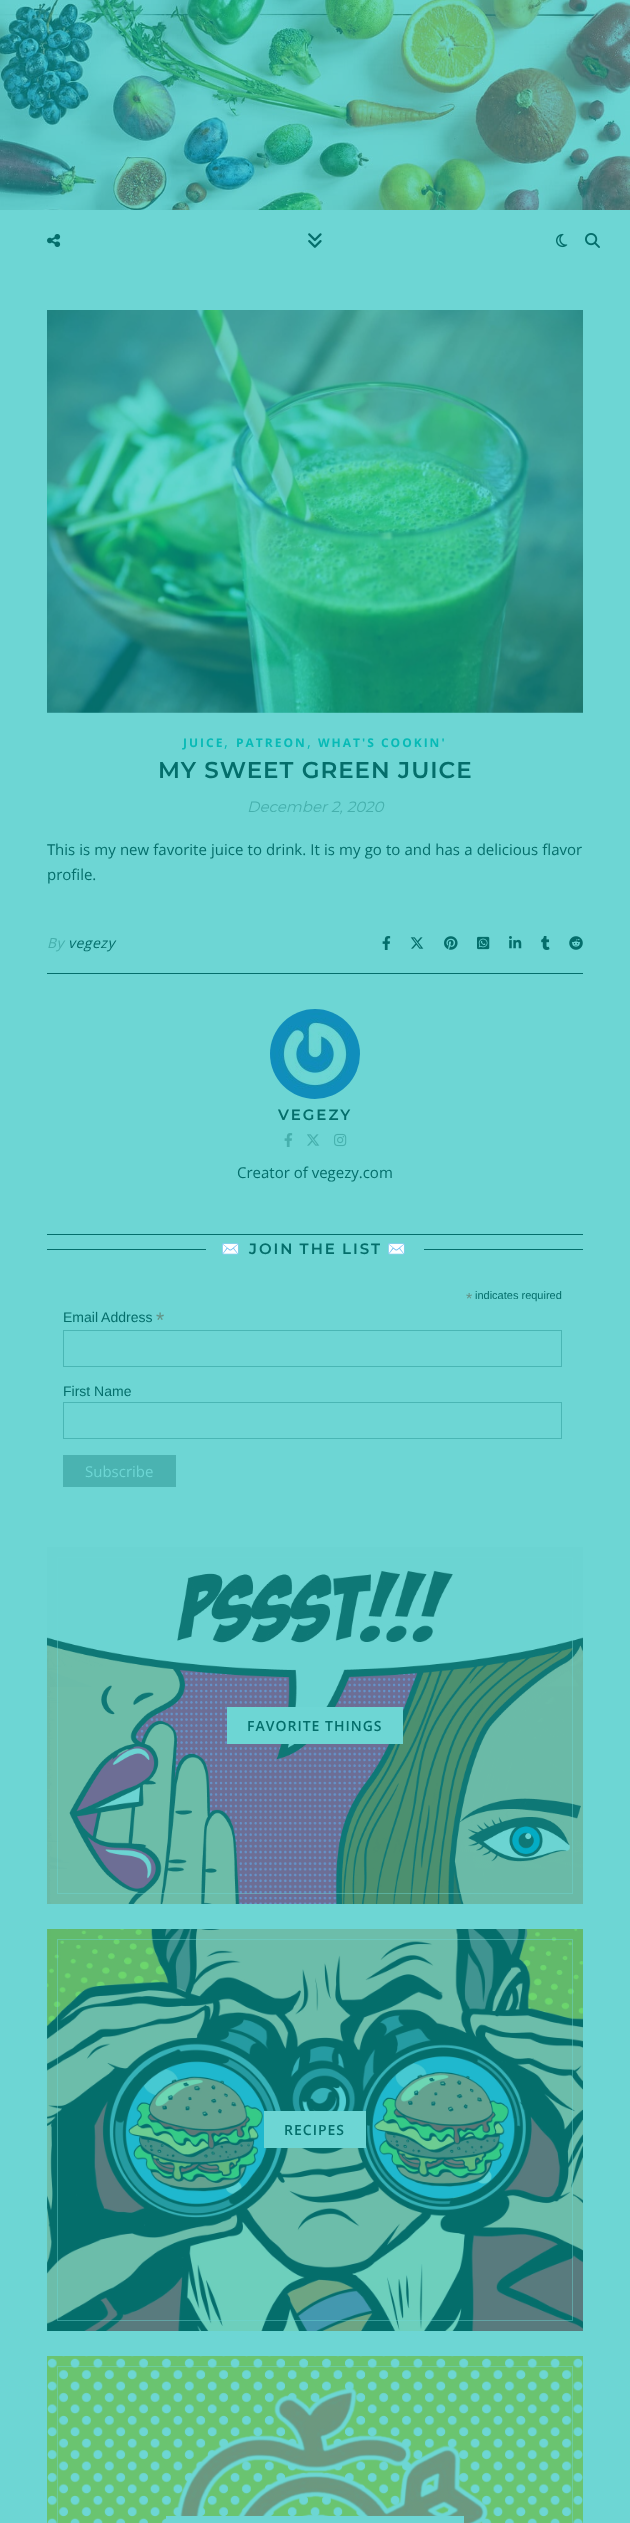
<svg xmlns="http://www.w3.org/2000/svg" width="630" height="2523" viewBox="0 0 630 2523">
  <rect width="100%" height="100%" fill="#6dd6d4"/>
  <image x="0" y="0" width="630" height="210" href="img1.png"/>
  <image x="47" y="234" width="14" height="13" href="img2.png"/>
  <image x="308" y="233" width="14" height="15" href="img3.png"/>
  <image x="556" y="233" width="12" height="15" href="img4.png"/>
  <image x="585" y="233" width="15" height="15" href="img5.png"/>
  <image x="47" y="310" width="536" height="403" href="img6.png"/>
  <text x="183" y="747" font-family="Open Sans" font-size="12" font-weight="bold" letter-spacing="2" fill="#07bab6">JUICE</text>
  <text x="224" y="747" font-family="Open Sans" font-size="15" fill="#07bab6">,</text>
  <text x="236" y="747" font-family="Open Sans" font-size="12" font-weight="bold" letter-spacing="2" fill="#07bab6">PATREON</text>
  <text x="307" y="747" font-family="Open Sans" font-size="15" fill="#07bab6">,</text>
  <text x="318" y="747" font-family="Open Sans" font-size="12" font-weight="bold" letter-spacing="2" fill="#07bab6">WHAT'S COOKIN'</text>
  <text x="158" y="778" font-family="Montserrat" font-size="23" font-weight="600" letter-spacing="1" fill="#046e6b">MY SWEET GREEN JUICE</text>
  <text x="247" y="812" font-family="Montserrat" font-size="15" font-style="italic" fill="#46b0ad">December 2, 2020</text>
  <text x="47" y="855" font-family="Noto Sans" font-size="15" fill="#046e6b">T</text>
  <text x="55" y="855" word-spacing="0.25" font-family="Open Sans" font-size="15" fill="#046e6b">his is my new favorite juice to drink. It is my go to and has a delicious flavor</text>
  <text x="47" y="880" font-family="Open Sans" font-size="15" fill="#046e6b">profile.</text>
  <rect x="47" y="973" width="536" height="1" fill="#046e6b"/>
  <text x="47" y="948" font-family="Open Sans" font-size="14" font-style="italic" letter-spacing="0.5" fill="#46b0ad">By</text>
  <text x="68" y="948" font-family="Open Sans" font-size="14" font-style="italic" letter-spacing="0.5" fill="#046e6b">vegezy</text>
  <image x="382" y="936" width="9" height="14" href="img7.png"/>
  <image x="410" y="937" width="14" height="12" href="img8.png"/>
  <image x="444" y="936" width="14" height="14" href="img9.png"/>
  <image x="477" y="936" width="13" height="14" href="img10.png"/>
  <image x="509" y="936" width="13" height="13" href="img11.png"/>
  <image x="541" y="936" width="9" height="14" href="img12.png"/>
  <image x="569" y="936" width="14" height="14" href="img13.png"/>
  <rect x="47" y="1234" width="536" height="1" fill="#046e6b"/>
  <image x="270" y="1009" width="90" height="90" href="img14.png"/>
  <text x="278" y="1120" font-family="Montserrat" font-size="15" font-weight="600" letter-spacing="2" fill="#046e6b">VEGEZY</text>
  <image x="284" y="1133" width="9" height="14" href="img15.png"/>
  <image x="307" y="1134" width="13" height="12" href="img16.png"/>
  <image x="334" y="1133" width="13" height="14" href="img17.png"/>
  <text x="237" y="1178" font-family="Open Sans" font-size="15" fill="#046e6b">Creator of vegezy.com</text>
  <rect x="47" y="1249" width="159" height="1" fill="#046e6b"/>
  <text x="221" y="1254" font-family="Noto Color Emoji" font-size="15" font-weight="bold" letter-spacing="2" fill="#046e6b">✉️</text>
  <text x="249" y="1254" word-spacing="-1" font-family="Montserrat" font-size="15" font-weight="600" letter-spacing="2" fill="#046e6b">JOIN THE LIST</text>
  <text x="387" y="1254" font-family="Noto Color Emoji" font-size="15" font-weight="bold" letter-spacing="2" fill="#046e6b">✉️</text>
  <rect x="424" y="1249" width="159" height="1" fill="#046e6b"/>
  <text x="466" y="1304" font-family="Liberation Sans" font-size="16" fill="#639386">*</text>
  <text x="475" y="1299" font-family="Liberation Sans" font-size="11" fill="#046e6b">indicates required</text>
  <text x="63" y="1322" font-family="Liberation Sans" font-size="14" fill="#046e6b">Email Address</text>
  <text x="156" y="1327" font-family="Liberation Sans" font-size="21" fill="#639386">*</text>
  <rect x="63.5" y="1330.5" width="498" height="36" fill="none" stroke="#4ab6b4"/>
  <text x="63" y="1396" font-family="Liberation Sans" font-size="14" fill="#046e6b">First Name</text>
  <rect x="63.5" y="1402.5" width="498" height="36" fill="none" stroke="#4ab6b4"/>
  <rect x="63" y="1455" width="113" height="32" fill="#4ab3b1"/>
  <text x="85" y="1477" font-family="Open Sans" font-size="15" fill="#6dd6d4">Subscribe</text>
  <image x="47" y="1547" width="536" height="357" href="img18.png"/>
  <rect x="57.5" y="1557.5" width="515" height="336" fill="none" stroke="#6dd6d4" stroke-opacity="0.45"/>
  <rect x="227" y="1707" width="176" height="37" fill="#6dd6d4"/>
  <text x="247" y="1731" font-family="Open Sans" font-size="14" font-weight="600" letter-spacing="1" fill="#046e6b">FAVORITE THINGS</text>
  <image x="47" y="1929" width="536" height="402" href="img19.png"/>
  <rect x="57.5" y="1939.5" width="515" height="381" fill="none" stroke="#6dd6d4" stroke-opacity="0.45"/>
  <rect x="264" y="2111" width="102" height="37" fill="#6dd6d4"/>
  <text x="284" y="2135" font-family="Open Sans" font-size="14" font-weight="600" letter-spacing="1" fill="#046e6b">RECIPES</text>
  <image x="47" y="2356" width="536" height="167" href="img20.png"/>
  <rect x="57.5" y="2366.5" width="515" height="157" fill="none" stroke="#6dd6d4" stroke-opacity="0.45"/>
  <rect x="166" y="2516" width="298" height="7" fill="#6dd6d4"/>
</svg>
